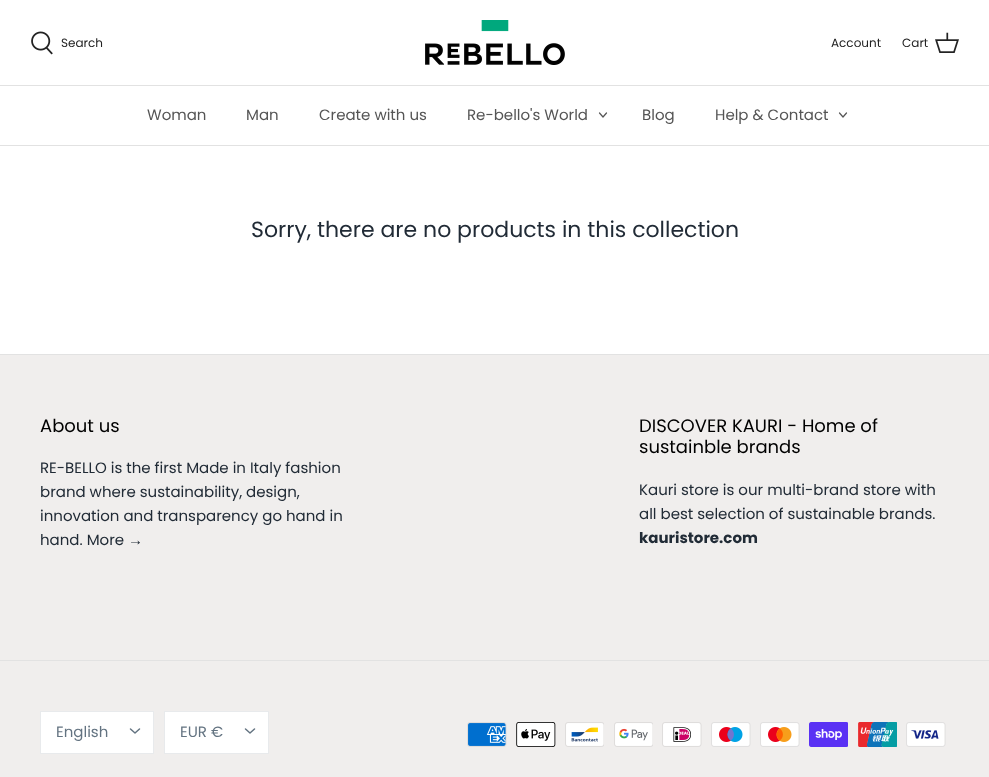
<svg xmlns="http://www.w3.org/2000/svg" width="989" height="777" viewBox="0 0 989 777">
  <rect width="100%" height="100%" fill="#ffffff"/>
  <rect x="0" y="85" width="989" height="1" fill="#e2e2e2"/>
  <image x="31" y="31" width="22" height="24" href="img1.png"/>
  <text x="61" y="47" font-family="Poppins" font-size="12" fill="#232323">Search</text>
  <image x="425" y="20" width="140" height="45" href="img2.png"/>
  <text x="831" y="47" font-family="Poppins" font-size="12" fill="#232323">Account</text>
  <text x="902" y="47" font-family="Poppins" font-size="12" fill="#232323">Cart</text>
  <image x="935" y="32" width="24" height="21" href="img3.png"/>
  <rect x="0" y="145" width="989" height="1" fill="#e2e2e2"/>
  <text x="147" y="120" font-family="Poppins" font-size="15" fill="#555555">Woman</text>
  <text x="246" y="120" font-family="Poppins" font-size="15" fill="#555555">Man</text>
  <text x="319" y="120" font-family="Poppins" font-size="15" fill="#555555">Create with us</text>
  <text x="467" y="120" font-family="Poppins" font-size="15" fill="#555555">Re-bello's World</text>
  <path d="M599.5 113L603 117L606.5 113" fill="none" stroke="#555555" stroke-width="1.2" stroke-linecap="round" stroke-linejoin="round"/>
  <text x="642" y="120" font-family="Poppins" font-size="15" fill="#555555">Blog</text>
  <text x="715" y="120" font-family="Poppins" font-size="15" fill="#555555">Help &amp; Contact</text>
  <path d="M839.5 113L843 117L846.5 113" fill="none" stroke="#555555" stroke-width="1.2" stroke-linecap="round" stroke-linejoin="round"/>
  <text x="251" y="237" font-family="Poppins" font-size="22" fill="#212b36">Sorry, there are no products in this collection</text>
  <rect x="0" y="355" width="989" height="422" fill="#f0eeed"/>
  <rect x="0" y="354" width="989" height="1" fill="#e2e2e2"/>
  <text x="40" y="432" font-family="Poppins" font-size="18" fill="#000000">About us</text>
  <text x="40" y="473" font-family="Poppins" font-size="15" fill="#212b36">RE-BELLO is the first Made in Italy fashion</text>
  <text x="40" y="497" font-family="Poppins" font-size="15" fill="#212b36">brand where sustainability, design,</text>
  <text x="40" y="521" font-family="Poppins" font-size="15" fill="#212b36">innovation and transparency go hand in</text>
  <text x="40" y="545" font-family="Poppins" font-size="15" fill="#212b36">hand. More</text>
  <text x="128" y="545" font-family="Liberation Sans" font-size="15" fill="#212b36">→</text>
  <text x="639" y="432" font-family="Poppins" font-size="18" fill="#000000">DISCOVER KAURI - Home of</text>
  <text x="639" y="453" font-family="Poppins" font-size="18" fill="#000000">sustainble brands</text>
  <text x="639" y="495" font-family="Poppins" font-size="15" fill="#212b36">Kauri store is our multi-brand store with</text>
  <text x="639" y="519" font-family="Poppins" font-size="15" fill="#212b36">all best selection of sustainable brands.</text>
  <text x="639" y="543" font-family="Poppins" font-size="15" font-weight="bold" fill="#212b36">kauristore.com</text>
  <rect x="0" y="660" width="989" height="1" fill="#e2e2e2"/>
  <rect x="40.5" y="711.5" width="113" height="42" fill="#ffffff" stroke="#e8eaec"/>
  <text x="56" y="737" font-family="Poppins" font-size="15" fill="#637381">English</text>
  <path d="M130.5 729L135 733L139.5 729" fill="none" stroke="#637381" stroke-width="1.5" stroke-linecap="round" stroke-linejoin="round"/>
  <rect x="164.5" y="711.5" width="104" height="42" fill="#ffffff" stroke="#e8eaec"/>
  <text x="180" y="737" font-family="Poppins" font-size="15" fill="#637381">EUR €</text>
  <path d="M245.5 729L250 733L254.5 729" fill="none" stroke="#637381" stroke-width="1.5" stroke-linecap="round" stroke-linejoin="round"/>
  <image x="467" y="722" width="40" height="25" href="img4.png"/>
  <image x="516" y="722" width="40" height="25" href="img5.png"/>
  <image x="565" y="722" width="39" height="25" href="img6.png"/>
  <image x="614" y="722" width="39" height="25" href="img7.png"/>
  <image x="662" y="722" width="40" height="25" href="img8.png"/>
  <image x="711" y="722" width="40" height="25" href="img9.png"/>
  <image x="760" y="722" width="40" height="25" href="img10.png"/>
  <image x="809" y="722" width="39" height="25" href="img11.png"/>
  <image x="858" y="722" width="39" height="25" href="img12.png"/>
  <image x="906" y="722" width="40" height="25" href="img13.png"/>
</svg>
